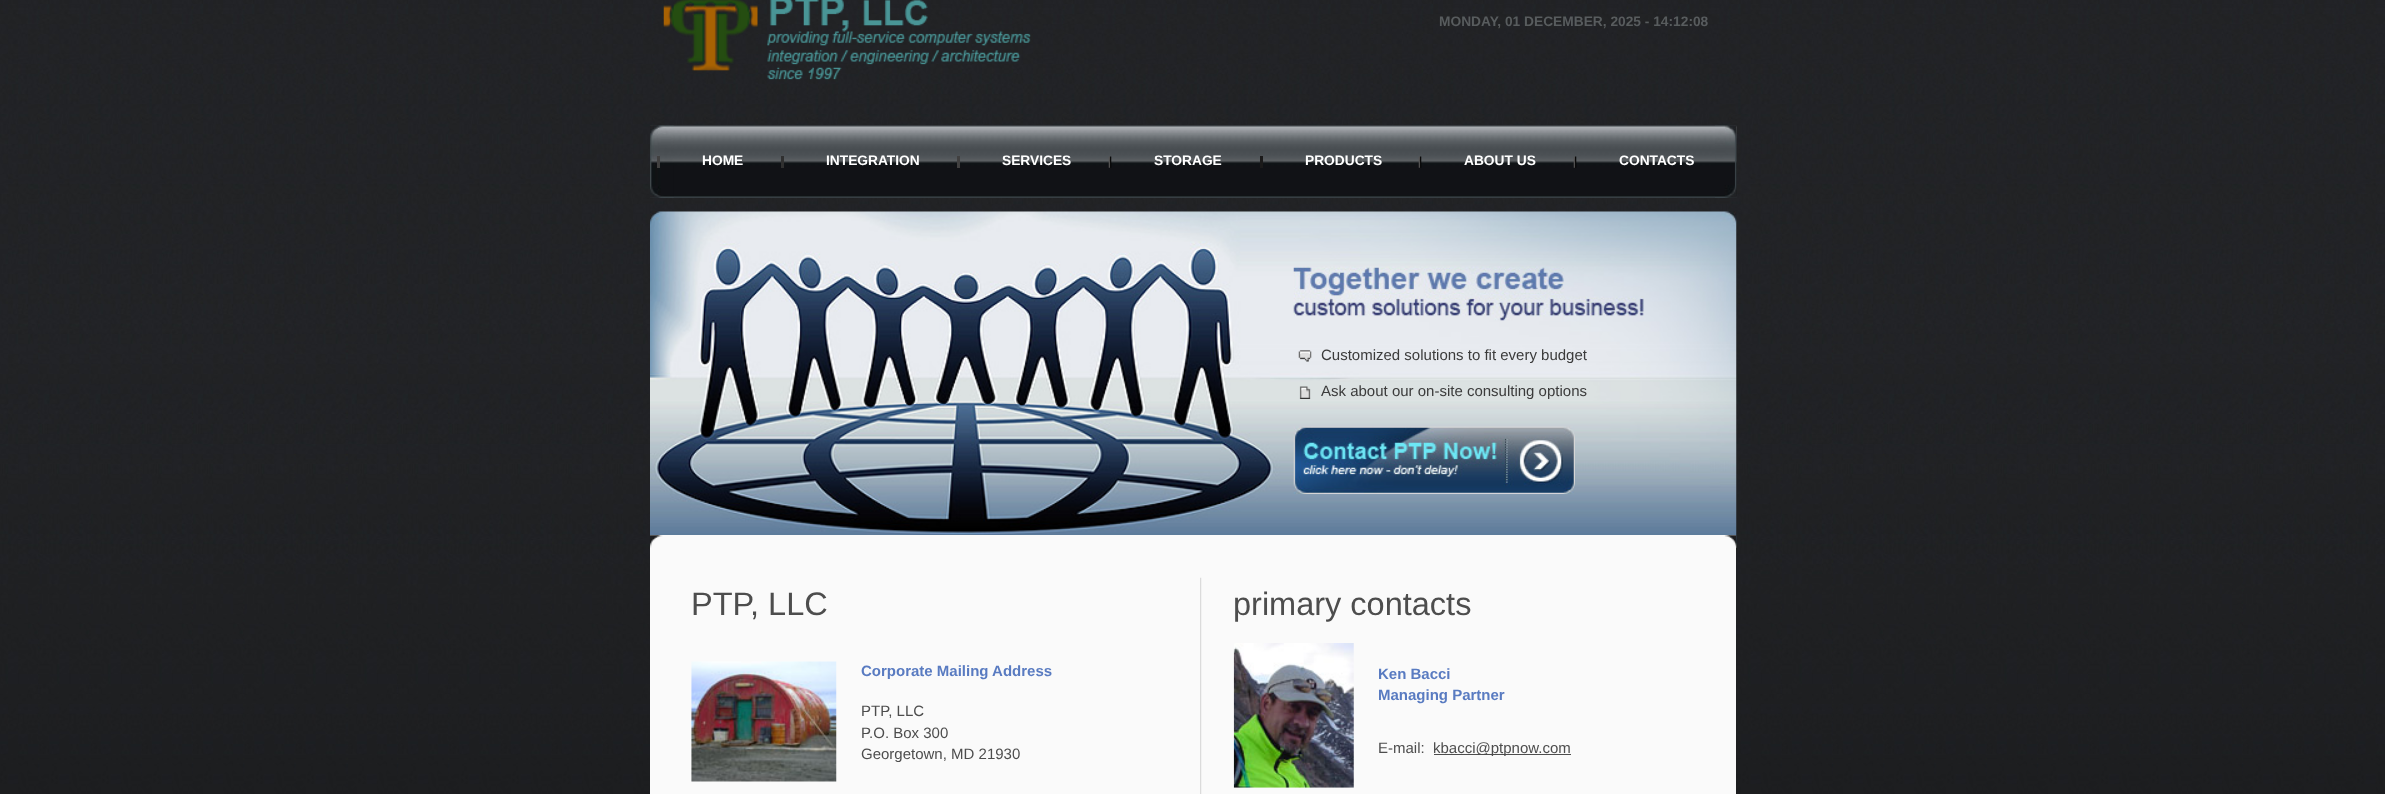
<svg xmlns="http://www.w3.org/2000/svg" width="2385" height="794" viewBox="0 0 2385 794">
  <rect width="100%" height="100%" fill="#ffffff"/>
  <image x="0" y="0" width="2385" height="794" href="img1.png"/>
  <image x="663" y="0" width="368" height="80" href="img2.png"/>
  <text x="1439" y="26" font-family="Liberation Sans" font-size="13.75" font-weight="bold" fill="#585c5e">MONDAY, 01 DECEMBER, 2025 - 14:12:08</text>
  <image x="650" y="125" width="1087" height="73" href="img3.png"/>
  <image x="1715" y="125" width="22" height="73" href="img4.png"/>
  <image x="650" y="125" width="24" height="73" href="img5.png"/>
  <text x="702" y="165" font-family="Liberation Sans" font-size="13.75" font-weight="bold" fill="#ffffff">HOME</text>
  <rect x="657" y="156" width="3" height="12" fill="#414040"/>
  <text x="826" y="165" font-family="Liberation Sans" font-size="13.75" font-weight="bold" fill="#ffffff">INTEGRATION</text>
  <rect x="781" y="156" width="3" height="12" fill="#303030"/>
  <text x="1002" y="165" font-family="Liberation Sans" font-size="13.75" font-weight="bold" fill="#ffffff">SERVICES</text>
  <rect x="957" y="156" width="3" height="12" fill="#414040"/>
  <image x="1108" y="156" width="4" height="12" href="img6.png"/>
  <text x="1154" y="165" font-family="Liberation Sans" font-size="13.75" font-weight="bold" fill="#ffffff">STORAGE</text>
  <text x="1305" y="165" font-family="Liberation Sans" font-size="13.75" font-weight="bold" fill="#ffffff">PRODUCTS</text>
  <rect x="1260" y="156" width="3" height="12" fill="#1b1a1a"/>
  <image x="1418" y="156" width="4" height="12" href="img7.png"/>
  <text x="1464" y="165" font-family="Liberation Sans" font-size="13.75" font-weight="bold" fill="#ffffff">ABOUT US</text>
  <image x="1573" y="156" width="4" height="12" href="img8.png"/>
  <text x="1619" y="165" font-family="Liberation Sans" font-size="13.75" font-weight="bold" fill="#ffffff">CONTACTS</text>
  <image x="650" y="211" width="1087" height="340" href="img9.png"/>
  <image x="1293" y="266" width="351" height="55" href="img10.png"/>
  <image x="1298" y="350" width="14" height="12" href="img11.png"/>
  <text x="1321" y="360" font-family="Liberation Sans" font-size="15" fill="#3b3b3b">Customized solutions to fit every budget</text>
  <image x="1299" y="386" width="12" height="13" href="img12.png"/>
  <text x="1321" y="396" font-family="Liberation Sans" font-size="15" fill="#3b3b3b">Ask about our on-site consulting options</text>
  <image x="1293" y="426" width="282" height="68" href="img13.png"/>
  <rect x="650" y="535" width="1086" height="259" fill="#fafafa"/>
  <image x="1724" y="535" width="13" height="13" href="img14.png"/>
  <image x="650" y="535" width="13" height="13" href="img15.png"/>
  <image x="1200" y="577" width="2" height="217" href="img16.png"/>
  <text x="691" y="615" font-family="Liberation Sans" font-size="32.5" fill="#4d4d4d">PTP, LLC</text>
  <image x="691" y="661" width="146" height="121" href="img17.png"/>
  <text x="861" y="676" font-family="Liberation Sans" font-size="15" font-weight="bold" fill="#597bc1">Corporate Mailing Address</text>
  <text x="861" y="716" font-family="Liberation Sans" font-size="15" fill="#4d4d4d">PTP, LLC</text>
  <text x="861" y="738" font-family="Liberation Sans" font-size="15" fill="#4d4d4d">P.O. Box 300</text>
  <text x="861" y="759" font-family="Liberation Sans" font-size="15" fill="#4d4d4d">Georgetown, MD 21930</text>
  <text x="1233" y="615" font-family="Liberation Sans" font-size="32.5" fill="#4d4d4d">primary contacts</text>
  <image x="1233" y="643" width="121" height="145" href="img18.png"/>
  <text x="1378" y="679" font-family="Liberation Sans" font-size="15" font-weight="bold" fill="#597bc1">Ken Bacci</text>
  <text x="1378" y="700" font-family="Liberation Sans" font-size="15" font-weight="bold" fill="#597bc1">Managing Partner</text>
  <text x="1378" y="753" font-family="Liberation Sans" font-size="15" fill="#4d4d4d">E-mail:</text>
  <rect x="1434" y="754" width="137" height="1" fill="#4d4d4d"/>
  <text x="1433" y="753" font-family="Liberation Sans" font-size="15" fill="#4d4d4d">kbacci@ptpnow.com</text>
</svg>
